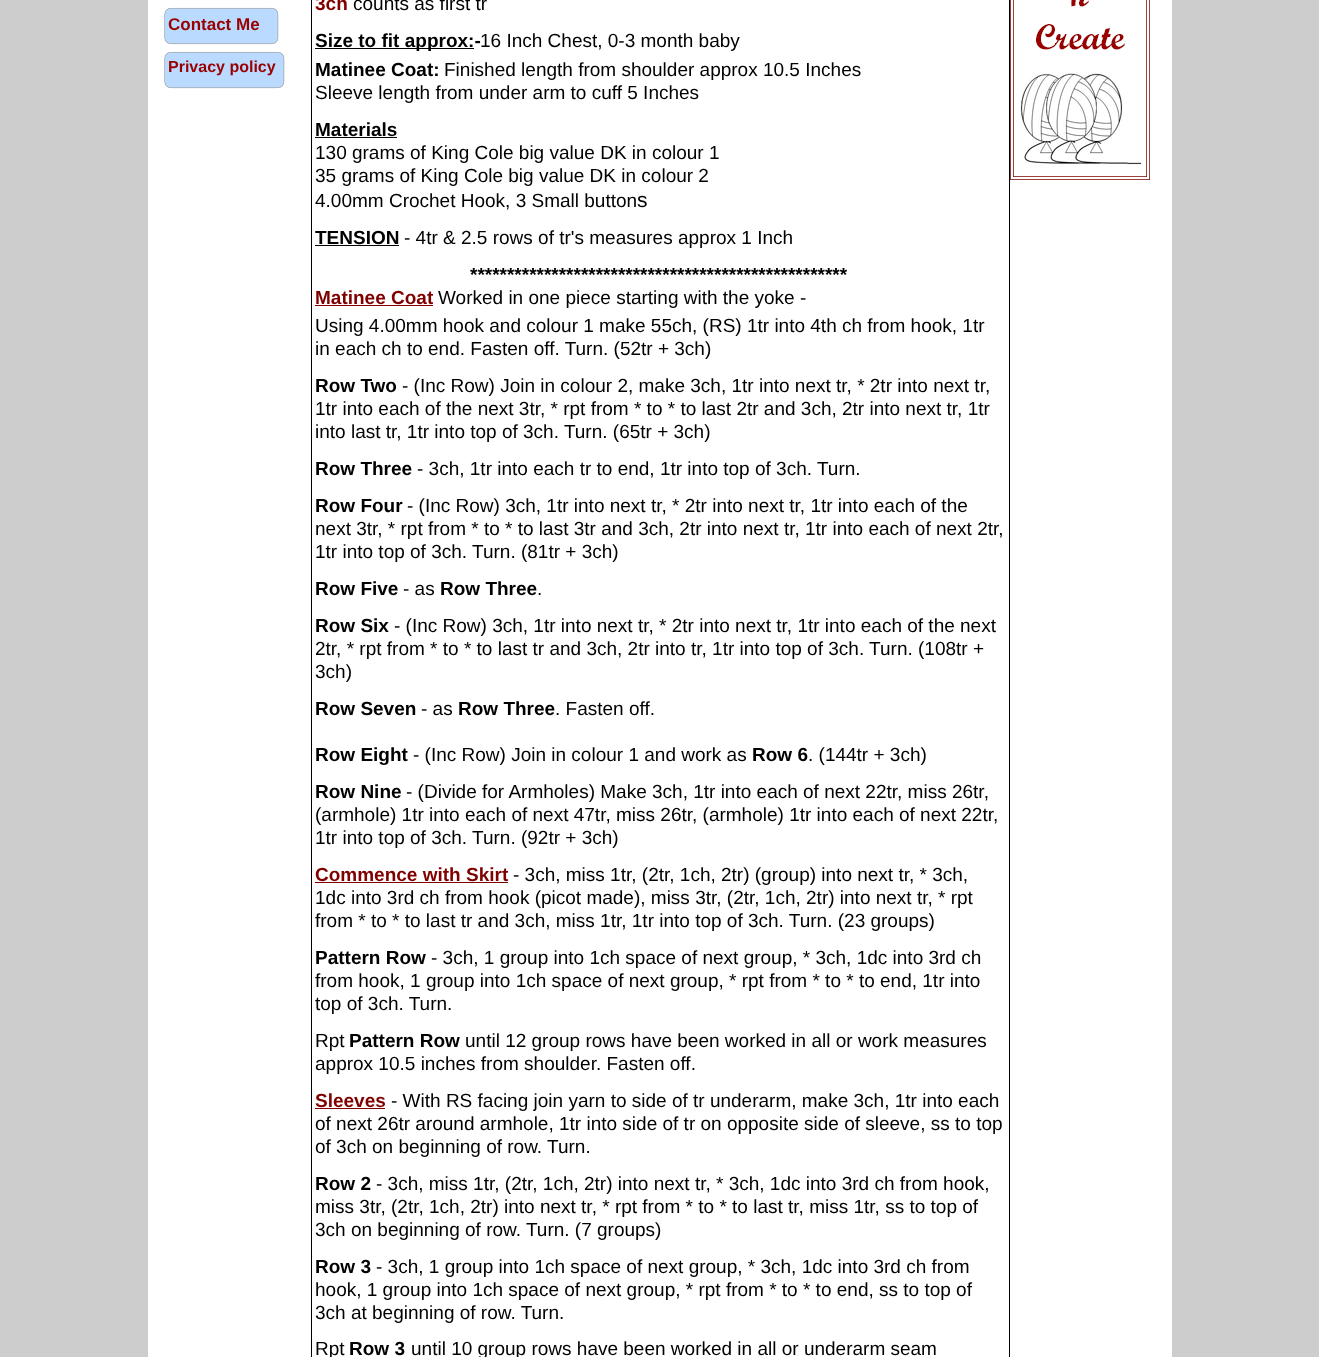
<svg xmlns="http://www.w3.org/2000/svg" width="1319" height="1357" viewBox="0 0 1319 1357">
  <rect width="100%" height="100%" fill="#cdcdcd"/>
  <rect x="148" y="0" width="1024" height="1357" fill="#ffffff"/>
  <image x="164" y="7" width="115" height="38" href="img1.png"/>
  <text x="168" y="30" font-family="Liberation Sans" font-size="17" font-weight="bold" fill="#990000">Contact Me</text>
  <rect x="311.5" y="-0.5" width="698" height="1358" fill="none" stroke="#000000"/>
  <text x="315" y="10" font-family="Liberation Sans" font-size="19" font-weight="bold" fill="#800000">3ch</text>
  <text x="353" y="10" font-family="Liberation Sans" font-size="19" fill="#000000">counts as first tr</text>
  <rect x="315" y="48" width="159" height="1" fill="#000000"/>
  <text x="315" y="47" font-family="Liberation Sans" font-size="19" font-weight="bold" fill="#000000">Size to fit approx:-</text>
  <text x="480" y="47" font-family="Liberation Sans" font-size="19" fill="#000000">16 Inch Chest, 0-3 month baby</text>
  <text x="315" y="76" font-family="Liberation Sans" font-size="19" font-weight="bold" fill="#000000">Matinee Coat:</text>
  <text x="444" y="76" font-family="Liberation Sans" font-size="19" fill="#000000">Finished length from shoulder approx 10.5 Inches</text>
  <text x="315" y="99" font-family="Liberation Sans" font-size="19" fill="#000000">Sleeve length from under arm to cuff 5 Inches</text>
  <text x="315" y="136" font-family="Liberation Sans" font-size="19" font-weight="bold" fill="#000000">Materials</text>
  <rect x="315" y="137" width="82" height="1" fill="#000000"/>
  <text x="315" y="159" font-family="Liberation Sans" font-size="19" fill="#000000">130 grams of King Cole big value DK in colour 1</text>
  <text x="315" y="182" font-family="Liberation Sans" font-size="19" fill="#000000">35 grams of King Cole big value DK in colour 2</text>
  <text x="315" y="207" font-family="Liberation Sans" font-size="19" fill="#000000">4.00mm Crochet Hook, 3 Small button</text>
  <text x="637" y="207" font-family="Liberation Sans" font-size="21" fill="#000000">s</text>
  <text x="315" y="244" font-family="Liberation Sans" font-size="19" font-weight="bold" fill="#000000">TENSION</text>
  <rect x="315" y="245" width="84" height="1" fill="#000000"/>
  <text x="404" y="244" font-family="Liberation Sans" font-size="19" fill="#000000">- 4tr &amp; 2.5 rows of tr's measures approx 1 Inch</text>
  <text x="470" y="281" font-family="Liberation Sans" font-size="19" font-weight="bold" fill="#000000">***************************************************</text>
  <text x="315" y="304" font-family="Liberation Sans" font-size="19" font-weight="bold" fill="#800000">Matinee Coat</text>
  <rect x="315" y="305" width="118" height="1" fill="#800000"/>
  <text x="438" y="304" font-family="Liberation Sans" font-size="19" fill="#000000">Worked in one piece starting with the yoke -</text>
  <text x="315" y="332" font-family="Liberation Sans" font-size="19" fill="#000000">Using 4.00mm hook and colour 1 make 55ch, (RS) 1tr into 4th ch from hook, 1tr</text>
  <text x="315" y="355" font-family="Liberation Sans" font-size="19" fill="#000000">in each ch to end. Fasten off. Turn. (52tr + 3ch)</text>
  <text x="315" y="392" font-family="Liberation Sans" font-size="19" font-weight="bold" fill="#000000">Row Two</text>
  <text x="402" y="392" font-family="Liberation Sans" font-size="19" fill="#000000">- (Inc Row) Join in colour 2, make 3ch, 1tr into next tr, * 2tr into next tr,</text>
  <text x="315" y="415" font-family="Liberation Sans" font-size="19" fill="#000000">1tr into each of the next 3tr, * rpt from * to * to last 2tr and 3ch, 2tr into next tr, 1tr</text>
  <text x="315" y="438" font-family="Liberation Sans" font-size="19" fill="#000000">into last tr, 1tr into top of 3ch. Turn. (65tr + 3ch)</text>
  <text x="315" y="475" font-family="Liberation Sans" font-size="19" font-weight="bold" fill="#000000">Row Three</text>
  <text x="417" y="475" font-family="Liberation Sans" font-size="19" fill="#000000">- 3ch, 1tr into each tr to end, 1tr into top of 3ch. Turn.</text>
  <text x="315" y="512" font-family="Liberation Sans" font-size="19" font-weight="bold" fill="#000000">Row Four</text>
  <text x="407" y="512" font-family="Liberation Sans" font-size="19" fill="#000000">- (Inc Row) 3ch, 1tr into next tr, * 2tr into next tr, 1tr into each of the</text>
  <text x="315" y="535" font-family="Liberation Sans" font-size="19" fill="#000000">next 3tr, * rpt from * to * to last 3tr and 3ch, 2tr into next tr, 1tr into each of next 2tr,</text>
  <text x="315" y="558" font-family="Liberation Sans" font-size="19" fill="#000000">1tr into top of 3ch. Turn. (81tr + 3ch)</text>
  <text x="315" y="595" font-family="Liberation Sans" font-size="19" font-weight="bold" fill="#000000">Row Five</text>
  <text x="403" y="595" font-family="Liberation Sans" font-size="19" fill="#000000">- as</text>
  <text x="440" y="595" font-family="Liberation Sans" font-size="19" font-weight="bold" fill="#000000">Row Three</text>
  <text x="537" y="595" font-family="Liberation Sans" font-size="19" fill="#000000">.</text>
  <text x="315" y="632" font-family="Liberation Sans" font-size="19" font-weight="bold" fill="#000000">Row Six</text>
  <text x="394" y="632" font-family="Liberation Sans" font-size="19" fill="#000000">- (Inc Row) 3ch, 1tr into next tr, * 2tr into next tr, 1tr into each of the next</text>
  <text x="315" y="655" font-family="Liberation Sans" font-size="19" fill="#000000">2tr, * rpt from * to * to last tr and 3ch, 2tr into tr, 1tr into top of 3ch. Turn. (108tr +</text>
  <text x="315" y="678" font-family="Liberation Sans" font-size="19" fill="#000000">3ch)</text>
  <text x="315" y="715" font-family="Liberation Sans" font-size="19" font-weight="bold" fill="#000000">Row Seven</text>
  <text x="421" y="715" font-family="Liberation Sans" font-size="19" fill="#000000">- as</text>
  <text x="458" y="715" font-family="Liberation Sans" font-size="19" font-weight="bold" fill="#000000">Row Three</text>
  <text x="555" y="715" font-family="Liberation Sans" font-size="19" fill="#000000">. Fasten off.</text>
  <text x="315" y="761" font-family="Liberation Sans" font-size="19" font-weight="bold" fill="#000000">Row Eight</text>
  <text x="413" y="761" font-family="Liberation Sans" font-size="19" fill="#000000">- (Inc Row) Join in colour 1 and work as</text>
  <text x="752" y="761" font-family="Liberation Sans" font-size="19" font-weight="bold" fill="#000000">Row 6</text>
  <text x="808" y="761" font-family="Liberation Sans" font-size="19" fill="#000000">. (144tr + 3ch)</text>
  <text x="315" y="798" font-family="Liberation Sans" font-size="19" font-weight="bold" fill="#000000">Row Nine</text>
  <text x="406" y="798" font-family="Liberation Sans" font-size="19" fill="#000000">- (Divide for Armholes) Make 3ch, 1tr into each of next 22tr, miss 26tr,</text>
  <text x="315" y="821" font-family="Liberation Sans" font-size="19" fill="#000000">(armhole) 1tr into each of next 47tr, miss 26tr, (armhole) 1tr into each of next 22tr,</text>
  <text x="315" y="844" font-family="Liberation Sans" font-size="19" fill="#000000">1tr into top of 3ch. Turn. (92tr + 3ch)</text>
  <text x="315" y="881" font-family="Liberation Sans" font-size="19" font-weight="bold" fill="#800000">Commence with Skirt</text>
  <rect x="315" y="882" width="193" height="1" fill="#800000"/>
  <text x="513" y="881" font-family="Liberation Sans" font-size="19" fill="#000000">- 3ch, miss 1tr, (2tr, 1ch, 2tr) (group) into next tr, * 3ch,</text>
  <text x="315" y="904" font-family="Liberation Sans" font-size="19" fill="#000000">1dc into 3rd ch from hook (picot made), miss 3tr, (2tr, 1ch, 2tr) into next tr, * rpt</text>
  <text x="315" y="927" font-family="Liberation Sans" font-size="19" fill="#000000">from * to * to last tr and 3ch, miss 1tr, 1tr into top of 3ch. Turn. (23 groups)</text>
  <text x="315" y="964" font-family="Liberation Sans" font-size="19" font-weight="bold" fill="#000000">Pattern Row</text>
  <text x="431" y="964" font-family="Liberation Sans" font-size="19" fill="#000000">- 3ch, 1 group into 1ch space of next group, * 3ch, 1dc into 3rd ch</text>
  <text x="315" y="987" font-family="Liberation Sans" font-size="19" fill="#000000">from hook, 1 group into 1ch space of next group, * rpt from * to * to end, 1tr into</text>
  <text x="315" y="1010" font-family="Liberation Sans" font-size="19" fill="#000000">top of 3ch. Turn.</text>
  <text x="315" y="1047" font-family="Liberation Sans" font-size="19" fill="#000000">Rpt</text>
  <text x="349" y="1047" font-family="Liberation Sans" font-size="19" font-weight="bold" fill="#000000">Pattern Row</text>
  <text x="465" y="1047" font-family="Liberation Sans" font-size="19" fill="#000000">until 12 group rows have been worked in all or work measures</text>
  <text x="315" y="1070" font-family="Liberation Sans" font-size="19" fill="#000000">approx 10.5 inches from shoulder. Fasten off.</text>
  <text x="315" y="1107" font-family="Liberation Sans" font-size="19" font-weight="bold" fill="#800000">Sleeves</text>
  <rect x="315" y="1108" width="70" height="1" fill="#800000"/>
  <text x="391" y="1107" font-family="Liberation Sans" font-size="19" fill="#000000">- With RS facing join yarn to side of tr underarm, make 3ch, 1tr into each</text>
  <text x="315" y="1130" font-family="Liberation Sans" font-size="19" fill="#000000">of next 26tr around armhole, 1tr into side of tr on opposite side of sleeve, ss to top</text>
  <text x="315" y="1153" font-family="Liberation Sans" font-size="19" fill="#000000">of 3ch on beginning of row. Turn.</text>
  <text x="315" y="1190" font-family="Liberation Sans" font-size="19" font-weight="bold" fill="#000000">Row 2</text>
  <text x="376" y="1190" font-family="Liberation Sans" font-size="19" fill="#000000">- 3ch, miss 1tr, (2tr, 1ch, 2tr) into next tr, * 3ch, 1dc into 3rd ch from hook,</text>
  <text x="315" y="1213" font-family="Liberation Sans" font-size="19" fill="#000000">miss 3tr, (2tr, 1ch, 2tr) into next tr, * rpt from * to * to last tr, miss 1tr, ss to top of</text>
  <text x="315" y="1236" font-family="Liberation Sans" font-size="19" fill="#000000">3ch on beginning of row. Turn. (7 groups)</text>
  <text x="315" y="1273" font-family="Liberation Sans" font-size="19" font-weight="bold" fill="#000000">Row 3</text>
  <text x="376" y="1273" font-family="Liberation Sans" font-size="19" fill="#000000">- 3ch, 1 group into 1ch space of next group, * 3ch, 1dc into 3rd ch from</text>
  <text x="315" y="1296" font-family="Liberation Sans" font-size="19" fill="#000000">hook, 1 group into 1ch space of next group, * rpt from * to * to end, ss to top of</text>
  <text x="315" y="1319" font-family="Liberation Sans" font-size="19" fill="#000000">3ch at beginning of row. Turn.</text>
  <text x="315" y="1355" font-family="Liberation Sans" font-size="19" fill="#000000">Rpt</text>
  <text x="349" y="1355" font-family="Liberation Sans" font-size="19" font-weight="bold" fill="#000000">Row 3</text>
  <text x="411" y="1355" font-family="Liberation Sans" font-size="19" fill="#000000">until 10 group rows have been worked in all or underarm seam</text>
  <image x="1010" y="0" width="140" height="180" href="img2.png"/>
  <image x="164" y="51" width="121" height="38" href="img3.png"/>
  <text x="168" y="72" font-family="Liberation Sans" font-size="16" font-weight="bold" fill="#990000">Privacy policy</text>
</svg>
